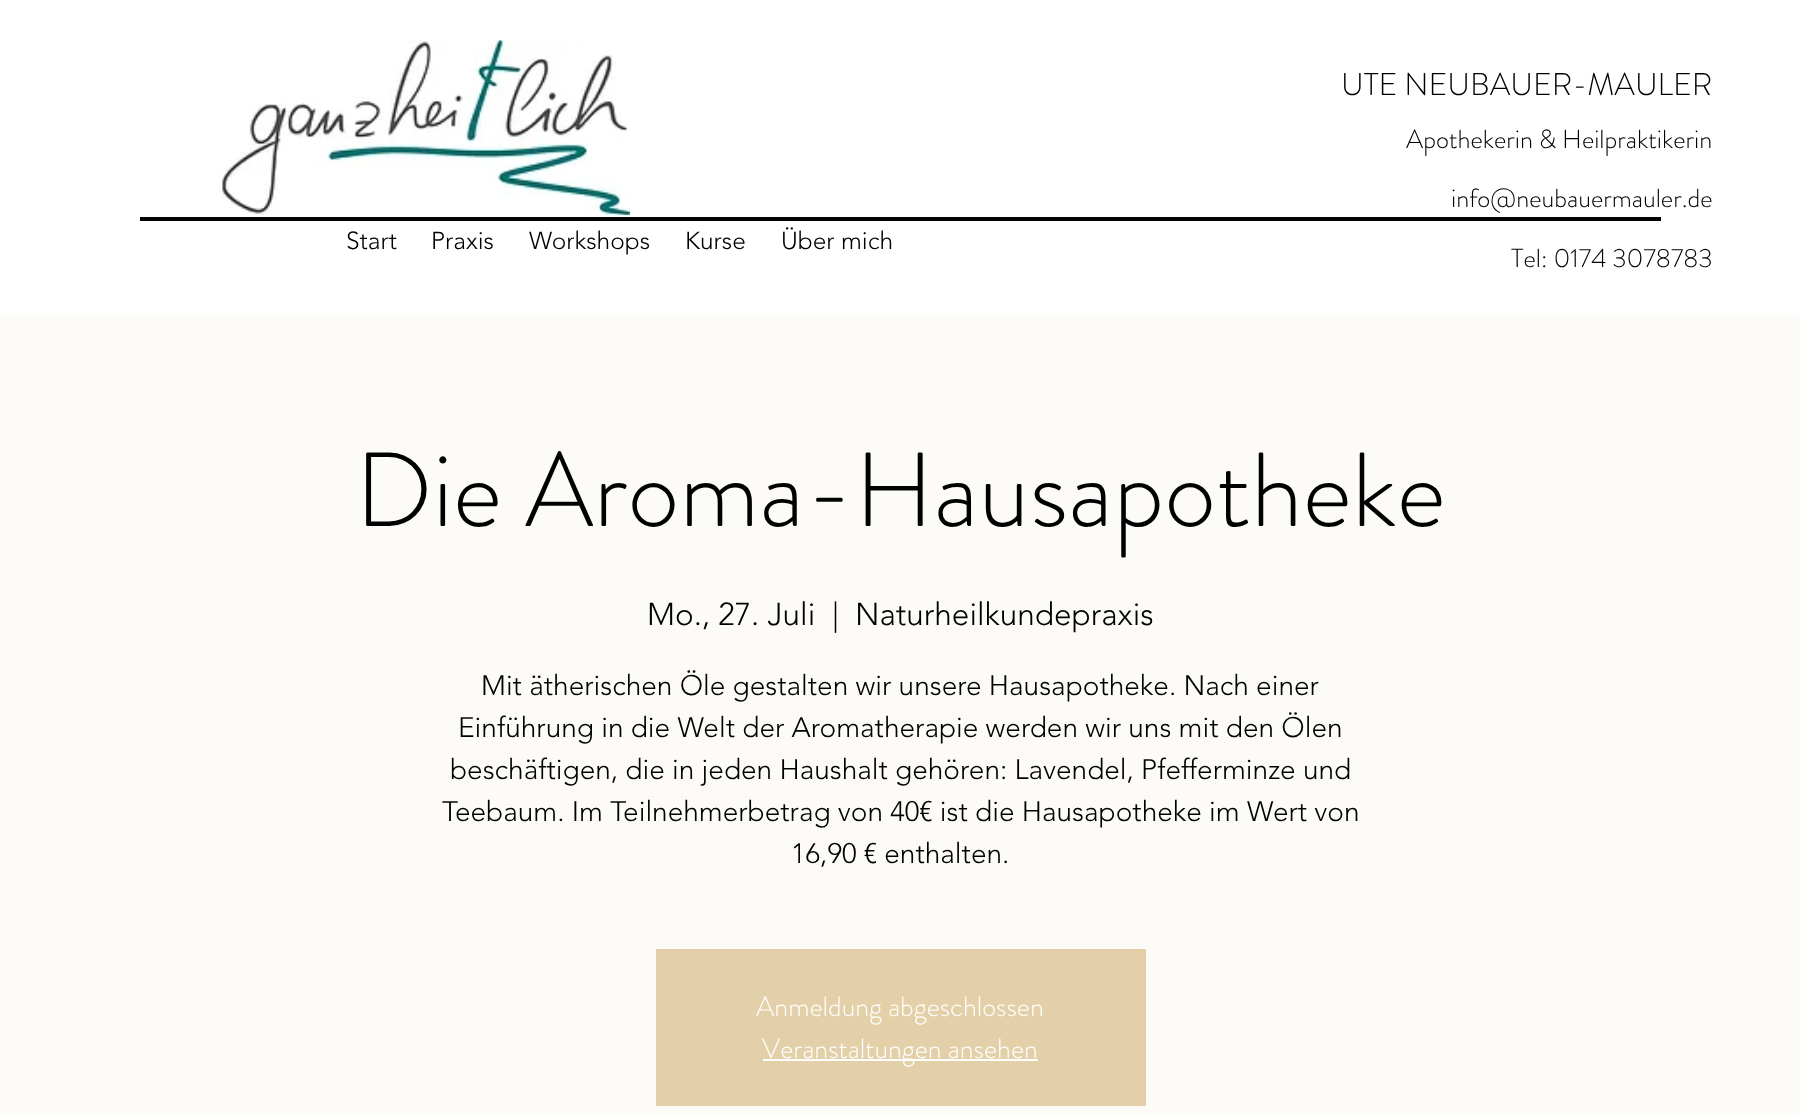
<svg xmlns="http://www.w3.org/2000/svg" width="1800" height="1116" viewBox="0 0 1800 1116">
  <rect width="100%" height="100%" fill="#ffffff"/>
  <image x="222" y="40" width="408" height="176" href="img1.png"/>
  <text x="1341" y="95" font-family="'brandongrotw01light'" font-size="31.5" font-weight="300" fill="#000000">UTE NEUBAUER-MAULER</text>
  <text x="1406" y="148" font-family="'brandongrotw01light'" font-size="26.25" font-weight="300" fill="#000000">Apothekerin &amp; Heilpraktikerin</text>
  <text x="1451" y="207" font-family="'brandongrotw01light'" font-size="26.25" font-weight="300" fill="#000000">info@neubauermauler.de</text>
  <text x="1511" y="267" font-family="'brandongrotw01light'" font-size="26.25" font-weight="300" fill="#000000">Tel: 0174 3078783</text>
  <rect x="140" y="217" width="1521" height="4" fill="#000000"/>
  <text x="346" y="249" font-family="'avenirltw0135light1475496'" font-size="24.5" font-weight="300" fill="#000000">Start</text>
  <text x="431" y="249" font-family="'avenirltw0135light1475496'" font-size="24.5" font-weight="300" fill="#000000">Praxis</text>
  <text x="529" y="249" font-family="'avenirltw0135light1475496'" font-size="24.5" font-weight="300" fill="#000000">Workshops</text>
  <text x="685" y="249" font-family="'avenirltw0135light1475496'" font-size="24.5" font-weight="300" fill="#000000">Kurse</text>
  <text x="781" y="249" font-family="'avenirltw0135light1475496'" font-size="24.5" font-weight="300" fill="#000000">Über mich</text>
  <rect x="0" y="313" width="1800" height="803" fill="#fdfbf7"/>
  <text x="355" y="526" font-family="'brandongrotw01light'" font-size="105" font-weight="300" fill="#000000">Die Aroma-Hausapotheke</text>
  <text x="647" y="625" font-family="'avenirltw0135light1475496'" font-size="31.5" font-weight="300" fill="#000000">Mo., 27. Juli</text>
  <text x="832" y="625" font-family="'avenirltw0135light1475496'" font-size="31.5" font-weight="300" fill="#000000">|</text>
  <text x="855" y="625" font-family="'avenirltw0135light1475496'" font-size="31.5" font-weight="300" fill="#000000">Naturheilkundepraxis</text>
  <text x="481" y="695" font-family="'avenirltw0135light1475496'" font-size="28" font-weight="300" fill="#000000">Mit ätherischen Öle gestalten wir unsere Hausapotheke. Nach einer</text>
  <text x="458" y="737" font-family="'avenirltw0135light1475496'" font-size="28" font-weight="300" fill="#000000">Einführung in die Welt der Aromatherapie werden wir uns mit den Ölen</text>
  <text x="450" y="779" font-family="'avenirltw0135light1475496'" font-size="28" font-weight="300" fill="#000000">beschäftigen, die in jeden Haushalt gehören: Lavendel, Pfefferminze und</text>
  <text x="442" y="821" font-family="'avenirltw0135light1475496'" font-size="28" font-weight="300" fill="#000000">Teebaum. Im Teilnehmerbetrag von 40€ ist die Hausapotheke im Wert von</text>
  <text x="791" y="863" font-family="'avenirltw0135light1475496'" font-size="28" font-weight="300" fill="#000000">16,90 € enthalten.</text>
  <rect x="656" y="949" width="490" height="157" fill="#e3d0a8"/>
  <text x="756" y="1016" font-family="'brandongrotw01light'" font-size="28" font-weight="300" fill="#ffffff">Anmeldung abgeschlossen</text>
  <rect x="763" y="1059" width="275" height="2" fill="#ffffff"/>
  <text x="762" y="1058" font-family="'brandongrotw01light'" font-size="28" font-weight="300" fill="#ffffff">Veranstaltungen ansehen</text>
</svg>
